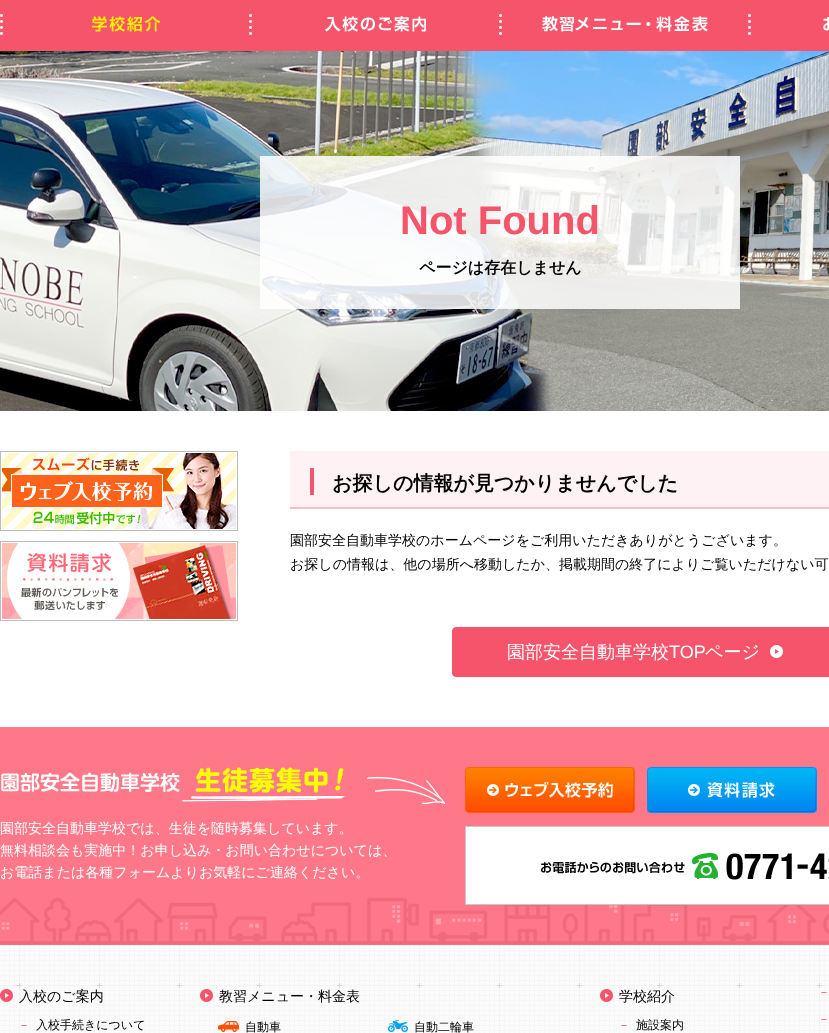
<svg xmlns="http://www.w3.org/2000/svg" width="829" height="1033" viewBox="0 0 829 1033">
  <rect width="100%" height="100%" fill="#ffffff"/>
  <rect x="0" y="0" width="829" height="51" fill="#f6546a"/>
  <image x="0" y="14" width="250" height="21" href="img1.png"/>
  <image x="250" y="14" width="250" height="21" href="img2.png"/>
  <image x="500" y="14" width="250" height="21" href="img3.png"/>
  <image x="750" y="14" width="79" height="21" href="img4.png"/>
  <image x="0" y="51" width="829" height="360" href="img5.png"/>
  <rect x="260" y="156" width="480" height="153" fill="#ffffff" fill-opacity="0.85"/>
  <text x="400" y="234" font-family="Liberation Sans" font-size="40" font-weight="bold" fill="#f6546a">Not Found</text>
  <text x="419" y="273" font-family="WenQuanYi Zen Hei" font-size="16" font-weight="bold" fill="#000000">ページは存在しません</text>
  <rect x="0.5" y="451.5" width="237" height="79" fill="none" stroke="#bcbcbc"/>
  <image x="2" y="453" width="234" height="76" href="img6.png"/>
  <rect x="0.5" y="541.5" width="237" height="79" fill="none" stroke="#bcbcbc"/>
  <image x="2" y="543" width="234" height="76" href="img7.png"/>
  <rect x="290" y="451" width="539" height="56" fill="#fff2f4"/>
  <rect x="290" y="507" width="539" height="2" fill="#f0c3c9"/>
  <rect x="310" y="468" width="4" height="27" fill="#f6546a"/>
  <text x="332" y="490" font-family="WenQuanYi Zen Hei" font-size="20" font-weight="bold" fill="#000000">お探しの情報が見つかりませんでした</text>
  <text x="290" y="545" font-family="WenQuanYi Zen Hei" font-size="14" font-weight="500" fill="#000000">園部安全自動車学校のホームページをご利用いただきありがとうございます。</text>
  <text x="290" y="569" font-family="WenQuanYi Zen Hei" font-size="14" font-weight="500" fill="#000000">お探しの情報は、他の場所へ移動したか、掲載期間の終了によりご覧いただけない可</text>
  <rect x="452.5" y="627.5" width="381" height="49" rx="3.5" fill="#f6546a" stroke="#f6546a"/>
  <text x="507" y="658" font-family="WenQuanYi Zen Hei" font-size="18" font-weight="500" fill="#ffffff">園部安全自動車学校</text>
  <text x="669" y="658" font-family="Liberation Sans" font-size="18" fill="#ffffff">TOP</text>
  <text x="705" y="658" font-family="WenQuanYi Zen Hei" font-size="18" font-weight="500" fill="#ffffff">ページ</text>
  <image x="770" y="645" width="13" height="13" href="img8.png"/>
  <rect x="0" y="727" width="829" height="161" fill="#ff788a"/>
  <image x="0" y="888" width="829" height="57" href="img9.png"/>
  <image x="367" y="776" width="78" height="29" href="img10.png"/>
  <image x="1" y="767" width="345" height="35" href="img11.png"/>
  <text x="0" y="833" font-family="WenQuanYi Zen Hei" font-size="14" font-weight="500" fill="#ffffff">園部安全自動車学校では、生徒を随時募集しています。</text>
  <text x="0" y="855" font-family="WenQuanYi Zen Hei" font-size="14" font-weight="500" fill="#ffffff">無料相談会も実施中！お申し込み・お問い合わせについては、</text>
  <text x="0" y="877" font-family="WenQuanYi Zen Hei" font-size="14" font-weight="500" fill="#ffffff">お電話または各種フォームよりお気軽にご連絡ください。</text>
  <image x="465" y="767" width="170" height="46" href="img12.png"/>
  <image x="647" y="767" width="170" height="46" href="img13.png"/>
  <image x="465" y="826" width="364" height="79" href="img14.png"/>
  <image x="0" y="945" width="829" height="88" href="img15.png"/>
  <image x="0" y="989" width="13" height="13" href="img16.png"/>
  <text x="19" y="1001" font-family="WenQuanYi Zen Hei" font-size="14" font-weight="500" fill="#000000">入校のご案内</text>
  <text x="18" y="1029" font-family="WenQuanYi Zen Hei" font-size="12" font-weight="500" fill="#f6546a">－</text>
  <text x="36" y="1029" font-family="WenQuanYi Zen Hei" font-size="12" font-weight="500" fill="#000000">入校手続きについて</text>
  <image x="200" y="989" width="13" height="13" href="img16.png"/>
  <text x="219" y="1001" font-family="WenQuanYi Zen Hei" font-size="14" font-weight="500" fill="#000000">教習メニュー・料金表</text>
  <image x="218" y="1021" width="21" height="11" href="img17.png"/>
  <text x="245" y="1031" font-family="WenQuanYi Zen Hei" font-size="12" font-weight="500" fill="#000000">自動車</text>
  <image x="388" y="1020" width="20" height="12" href="img18.png"/>
  <text x="414" y="1031" font-family="WenQuanYi Zen Hei" font-size="12" font-weight="500" fill="#000000">自動二輪車</text>
  <image x="600" y="989" width="13" height="13" href="img16.png"/>
  <text x="619" y="1001" font-family="WenQuanYi Zen Hei" font-size="14" font-weight="500" fill="#000000">学校紹介</text>
  <text x="618" y="1029" font-family="WenQuanYi Zen Hei" font-size="12" font-weight="500" fill="#f6546a">－</text>
  <text x="636" y="1029" font-family="WenQuanYi Zen Hei" font-size="12" font-weight="500" fill="#000000">施設案内</text>
  <text x="818" y="996" font-family="WenQuanYi Zen Hei" font-size="12" font-weight="500" fill="#f6546a">－</text>
  <text x="818" y="1023" font-family="WenQuanYi Zen Hei" font-size="12" font-weight="500" fill="#f6546a">－</text>
</svg>
